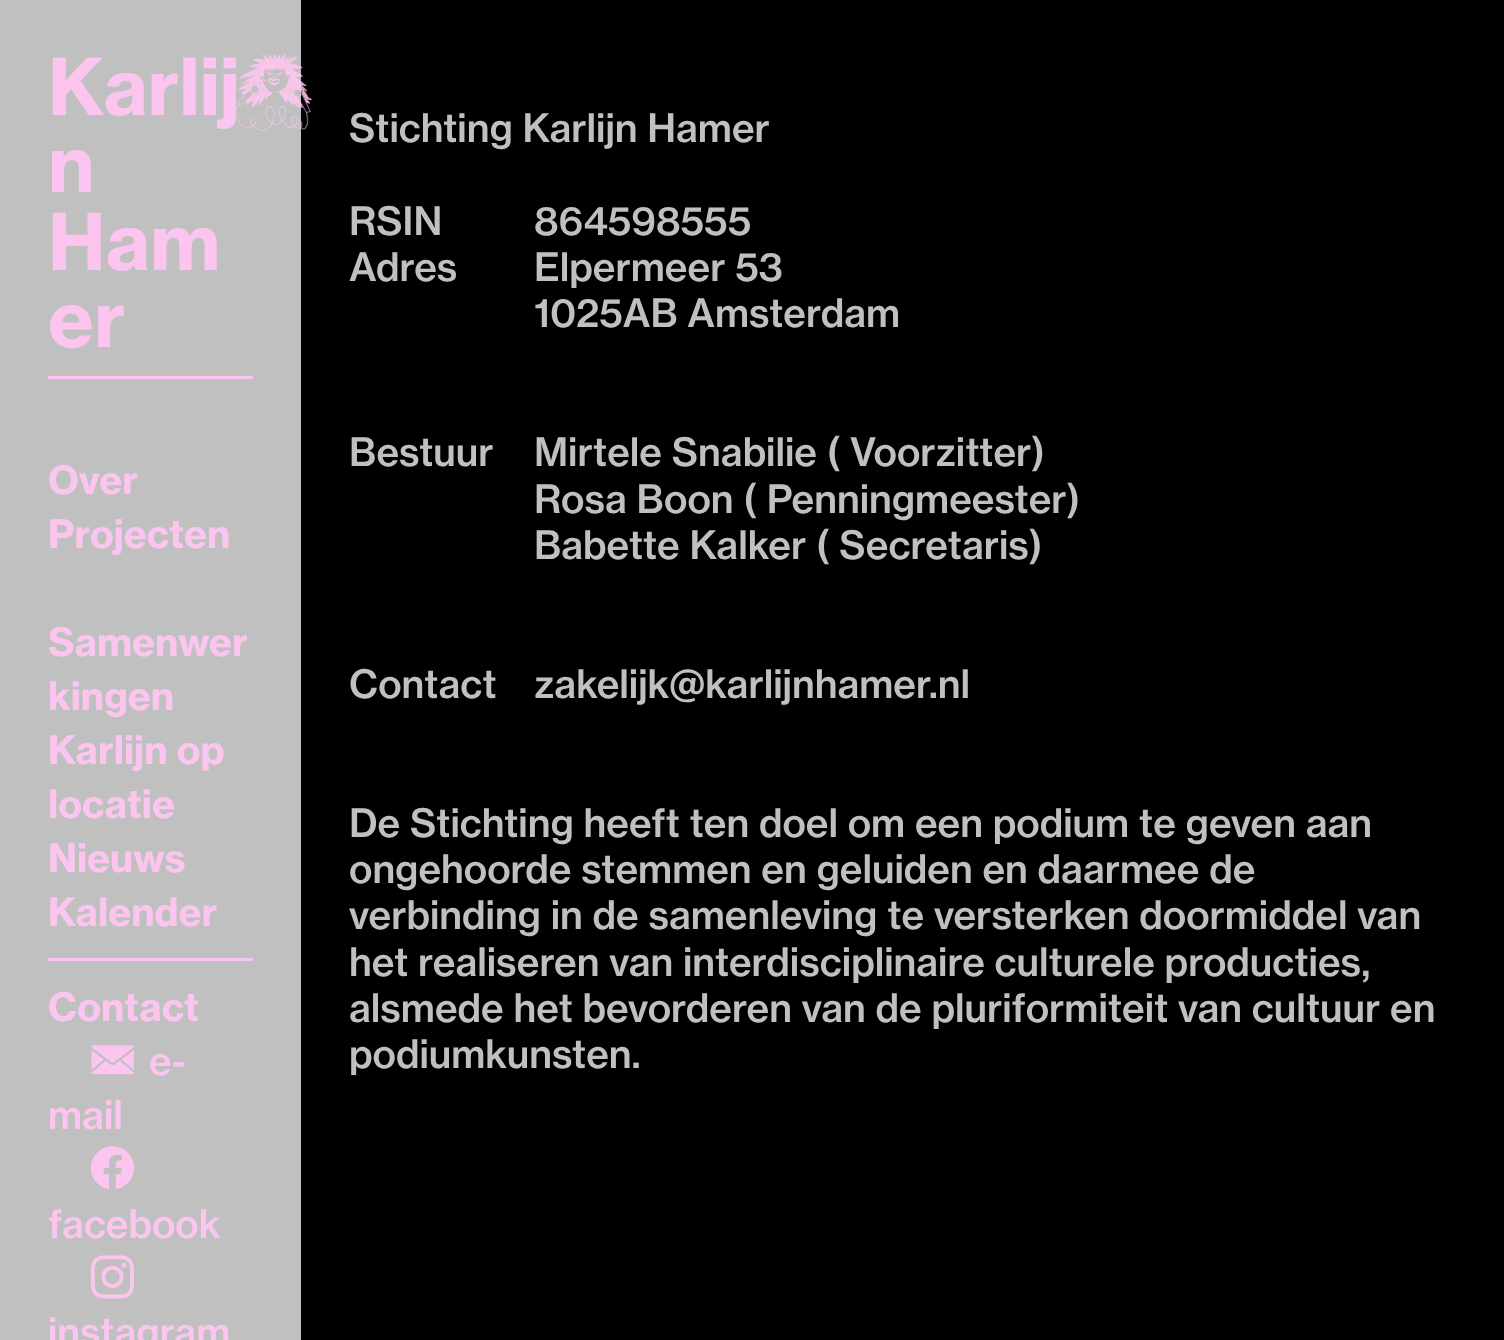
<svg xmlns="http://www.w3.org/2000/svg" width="1504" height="1340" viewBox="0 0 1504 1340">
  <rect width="100%" height="100%" fill="#c0c0c0"/>
  <text x="48" y="115" font-family="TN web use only" font-size="77" font-weight="bold" fill="#fcc5ef">Karlij</text>
  <text x="48" y="192" font-family="TN web use only" font-size="77" font-weight="bold" fill="#fcc5ef">n</text>
  <text x="48" y="270" font-family="TN web use only" font-size="77" font-weight="bold" fill="#fcc5ef">Ham</text>
  <text x="48" y="347" font-family="TN web use only" font-size="77" font-weight="bold" fill="#fcc5ef">er</text>
  <rect x="48" y="376" width="205" height="3" fill="#fcc5ef"/>
  <text x="48" y="494" font-family="TN web use only" font-size="38.6" font-weight="bold" fill="#fcc5ef">Over</text>
  <text x="48" y="548" font-family="TN web use only" font-size="38.6" font-weight="bold" fill="#fcc5ef">Projecten</text>
  <text x="48" y="656" font-family="TN web use only" font-size="38.6" font-weight="bold" fill="#fcc5ef">Samenwer</text>
  <text x="48" y="710" font-family="TN web use only" font-size="38.6" font-weight="bold" fill="#fcc5ef">kingen</text>
  <text x="48" y="764" font-family="TN web use only" font-size="38.6" font-weight="bold" fill="#fcc5ef">Karlijn op</text>
  <text x="48" y="818" font-family="TN web use only" font-size="38.6" font-weight="bold" fill="#fcc5ef">locatie</text>
  <text x="48" y="872" font-family="TN web use only" font-size="38.6" font-weight="bold" fill="#fcc5ef">Nieuws</text>
  <text x="48" y="926" font-family="TN web use only" font-size="38.6" font-weight="bold" fill="#fcc5ef">Kalender</text>
  <rect x="48" y="958" width="205" height="3" fill="#fcc5ef"/>
  <text x="48" y="1021" font-family="TN web use only" font-size="38.6" font-weight="bold" fill="#fcc5ef">Contact</text>
  <image x="91" y="1045" width="43" height="30" href="img1.png"/>
  <text x="149" y="1075" font-family="TN web use only" font-size="38.6" font-weight="500" fill="#fcc5ef">e-</text>
  <text x="48" y="1129" font-family="TN web use only" font-size="38.6" font-weight="500" fill="#fcc5ef">mail</text>
  <image x="90" y="1146" width="44" height="43" href="img2.png"/>
  <text x="48" y="1238" font-family="TN web use only" font-size="38.6" font-weight="500" fill="#fcc5ef">facebook</text>
  <image x="90" y="1255" width="44" height="44" href="img3.png"/>
  <text x="48" y="1346" font-family="TN web use only" font-size="38.6" font-weight="500" fill="#fcc5ef">instagram</text>
  <rect x="301" y="0" width="1203" height="1340" fill="#000000"/>
  <image x="236" y="53" width="77" height="78" href="img4.png"/>
  <text x="349" y="142" font-family="TN web use only" font-size="38.6" font-weight="500" fill="#c0c0c0">Stichting Karlijn Hamer</text>
  <text x="349" y="235" font-family="TN web use only" font-size="38.6" font-weight="500" fill="#c0c0c0">RSIN</text>
  <text x="349" y="281" font-family="TN web use only" font-size="38.6" font-weight="500" fill="#c0c0c0">Adres</text>
  <text x="349" y="466" font-family="TN web use only" font-size="38.6" font-weight="500" fill="#c0c0c0">Bestuur</text>
  <text x="349" y="698" font-family="TN web use only" font-size="38.6" font-weight="500" fill="#c0c0c0">Contact</text>
  <text x="534" y="235" font-family="TN web use only" font-size="38.6" font-weight="500" fill="#c0c0c0">864598555</text>
  <text x="534" y="281" font-family="TN web use only" font-size="38.6" font-weight="500" fill="#c0c0c0">Elpermeer 53</text>
  <text x="534" y="327" font-family="TN web use only" font-size="38.6" font-weight="500" fill="#c0c0c0">1025AB Amsterdam</text>
  <text x="534" y="466" font-family="TN web use only" font-size="38.6" font-weight="500" fill="#c0c0c0">Mirtele Snabilie ( Voorzitter)</text>
  <text x="534" y="513" font-family="TN web use only" font-size="38.6" font-weight="500" fill="#c0c0c0">Rosa Boon ( Penningmeester)</text>
  <text x="534" y="559" font-family="TN web use only" font-size="38.6" font-weight="500" fill="#c0c0c0">Babette Kalker ( Secretaris)</text>
  <text x="534" y="698" font-family="TN web use only" font-size="38.6" font-weight="500" fill="#c0c0c0">zakelijk@karlijnhamer.nl</text>
  <text x="349" y="837" font-family="TN web use only" font-size="38.6" font-weight="500" fill="#c0c0c0">De Stichting heeft ten doel om een podium te geven aan</text>
  <text x="349" y="883" font-family="TN web use only" font-size="38.6" font-weight="500" fill="#c0c0c0">ongehoorde stemmen en geluiden en daarmee de</text>
  <text x="349" y="929" font-family="TN web use only" font-size="38.6" font-weight="500" fill="#c0c0c0">verbinding in de samenleving te versterken doormiddel van</text>
  <text x="349" y="976" font-family="TN web use only" font-size="38.6" font-weight="500" fill="#c0c0c0">het realiseren van interdisciplinaire culturele producties,</text>
  <text x="349" y="1022" font-family="TN web use only" font-size="38.6" font-weight="500" fill="#c0c0c0">alsmede het bevorderen van de pluriformiteit van cultuur en</text>
  <text x="349" y="1068" font-family="TN web use only" font-size="38.6" font-weight="500" fill="#c0c0c0">podiumkunsten.</text>
</svg>
